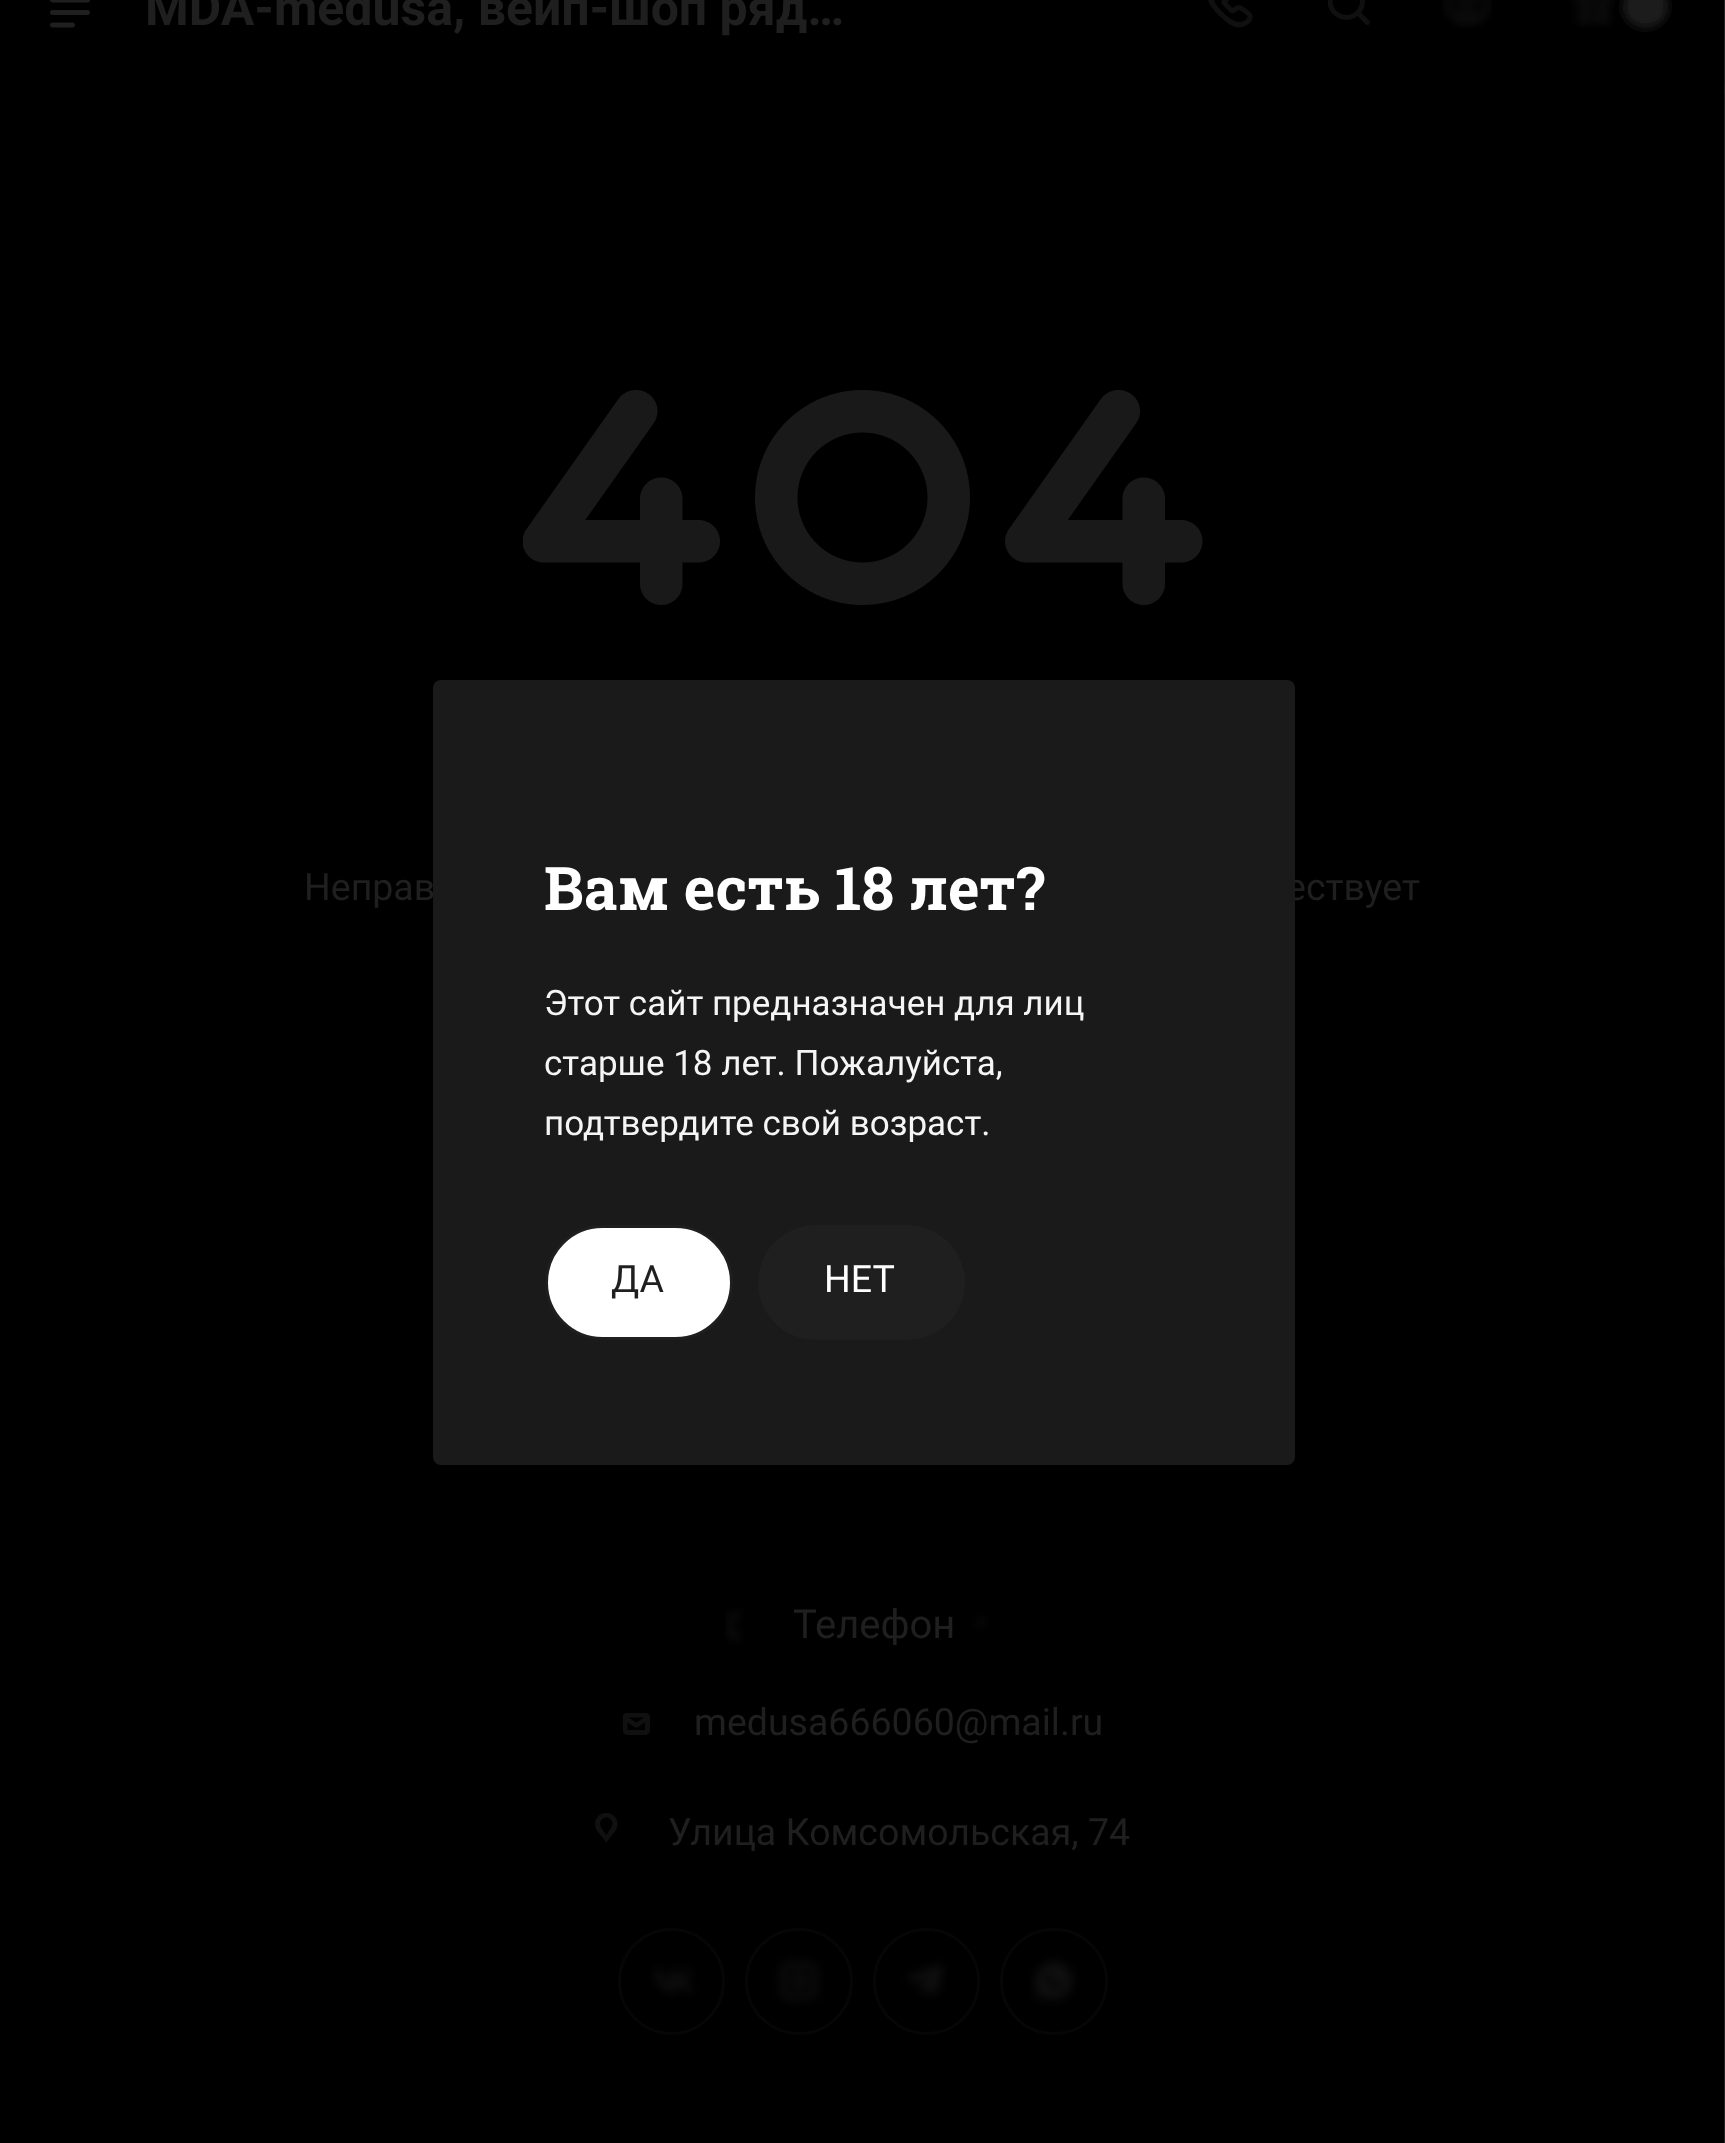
<svg xmlns="http://www.w3.org/2000/svg" width="1725" height="2143" viewBox="0 0 1725 2143">
  <defs>
    <filter id="blur1" x="-50%" y="-200%" width="200%" height="500%"><feGaussianBlur stdDeviation="5"/></filter>
    <clipPath id="clip1"><rect x="720" y="1605" width="268" height="40"/></clipPath>
  </defs>
  <rect width="100%" height="100%" fill="#ffffff"/>
  <image x="0" y="0" width="1725" height="2143" href="img1.png"/>
  <rect x="0" y="-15" width="1725" height="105" fill="#040404" filter="url(#blur1)"/>
  <image x="50" y="0" width="40" height="28" href="img2.png"/>
  <text x="145" y="25" font-family="Roboto" font-size="50" font-weight="bold" fill="#1f1f1f">MDA-medusa, вейп-шоп ряд…</text>
  <image x="1208" y="0" width="45" height="28" href="img3.png"/>
  <image x="1328" y="0" width="42" height="25" href="img4.png"/>
  <image x="1442" y="0" width="50" height="28" href="img5.png"/>
  <image x="1568" y="0" width="47" height="28" href="img6.png"/>
  <rect x="1623" y="-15" width="45" height="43" rx="21.5" fill="#1f1f1f" filter="url(#blur1)"/>
  <rect x="0" y="90" width="1725" height="1173" fill="#030303" filter="url(#blur1)"/>
  <image x="523" y="390" width="680" height="215" href="img7.png"/>
  <text x="304" y="900" font-family="Roboto" font-size="37.5" fill="#1f1f1f">Неправ</text>
  <text x="1286" y="900" font-family="Roboto" font-size="37.5" fill="#1f1f1f">ествует</text>
  <rect x="0" y="1263" width="1725" height="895" fill="#030303" filter="url(#blur1)"/>
  <rect x="433" y="680" width="862" height="785" rx="8" fill="#1a1a1a"/>
  <text x="544" y="910" font-family="Roboto Slab" font-size="60" font-weight="bold" fill="#ffffff">Вам есть 18 лет?</text>
  <text x="544" y="1015" font-family="Roboto" font-size="35" fill="#f5f5f5">Этот сайт предназначен для лиц</text>
  <text x="544" y="1075" font-family="Roboto" font-size="35" fill="#f5f5f5">старше 18 лет. Пожалуйста,</text>
  <text x="544" y="1135" font-family="Roboto" font-size="35" fill="#f5f5f5">подтвердите свой возраст.</text>
  <rect x="546.5" y="1226.5" width="185" height="112" rx="56" fill="#ffffff" stroke="#1f1f1f" stroke-width="3"/>
  <text x="611" y="1292" font-family="Roboto" font-size="37.5" fill="#1f1f1f">ДА</text>
  <rect x="758" y="1225" width="207" height="115" rx="57.5" fill="#1f1f1f"/>
  <text x="824" y="1292" font-family="Roboto" font-size="37.5" fill="#ffffff">НЕТ</text>
  <image x="725" y="1608" width="20" height="37" href="img8.png"/>
  <g clip-path="url(#clip1)">
    <text x="793" y="1638" font-family="Roboto" font-size="40" fill="#1f1f1f">Телефон</text>
  </g>
  <image x="971" y="1615" width="19" height="15" href="img9.png"/>
  <image x="623" y="1713" width="27" height="22" href="img10.png"/>
  <text x="694" y="1735" font-family="Roboto" font-size="37.5" fill="#1f1f1f">medusa666060@mail.ru</text>
  <image x="595" y="1813" width="23" height="30" href="img11.png"/>
  <text x="668" y="1845" font-family="Roboto" font-size="37.5" fill="#1f1f1f">Улица Комсомольская, 74</text>
  <image x="649" y="1963" width="49" height="36" href="img12.png"/>
  <circle cx="671.5" cy="1981.5" r="52" fill="none" stroke="#060606" stroke-width="3"/>
  <image x="772" y="1954" width="53" height="53" href="img13.png"/>
  <rect x="746.5" y="1929.5" width="105" height="104" rx="52" fill="none" stroke="#060606" stroke-width="3"/>
  <image x="902" y="1958" width="47" height="42" href="img14.png"/>
  <circle cx="926.5" cy="1981.5" r="52" fill="none" stroke="#060606" stroke-width="3"/>
  <image x="1028" y="1955" width="52" height="52" href="img15.png"/>
  <rect x="1001.5" y="1929.5" width="105" height="104" rx="52" fill="none" stroke="#060606" stroke-width="3"/>
</svg>
